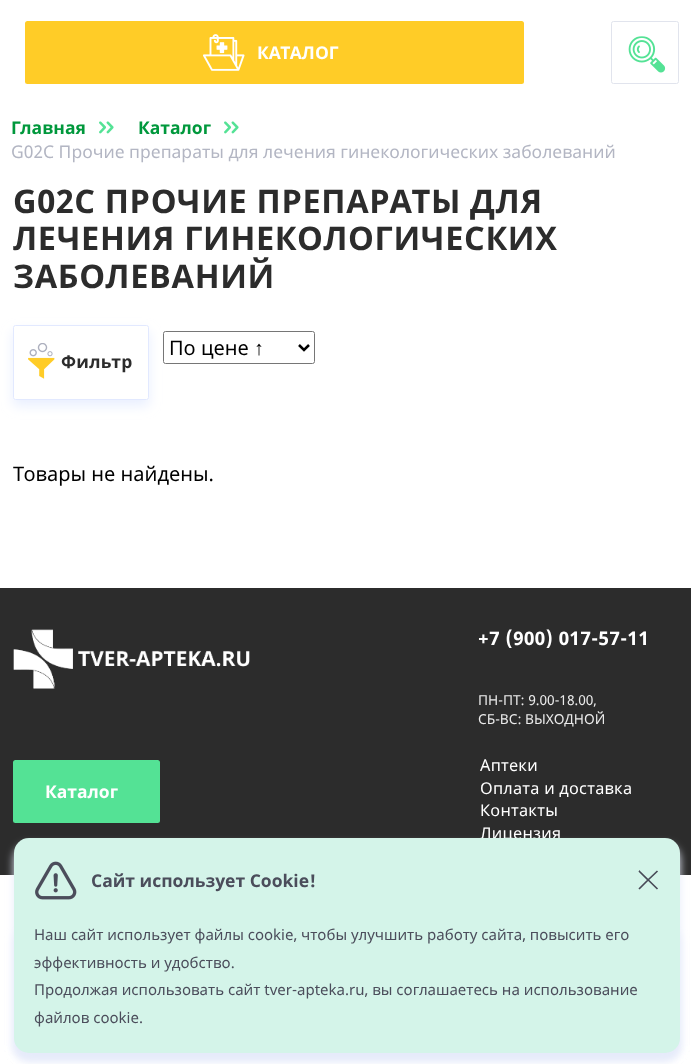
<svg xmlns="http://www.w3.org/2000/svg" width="691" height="1064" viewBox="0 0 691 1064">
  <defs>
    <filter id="blur1" x="-50%" y="-200%" width="200%" height="500%"><feGaussianBlur stdDeviation="6"/></filter>
    <filter id="blur2" x="-50%" y="-200%" width="200%" height="500%"><feGaussianBlur stdDeviation="4.5"/></filter>
  </defs>
  <rect width="100%" height="100%" fill="#ffffff"/>
  <rect x="25" y="21" width="499" height="63" rx="2.5" fill="#ffcc27"/>
  <image x="203" y="34" width="42" height="37" href="img1.png"/>
  <text x="257" y="59" font-family="Noto Sans" font-size="17.5" font-weight="bold" fill="#ffffff">КАТАЛОГ</text>
  <rect x="611.5" y="21.5" width="67" height="62" rx="2" fill="none" stroke="#e1e4ed"/>
  <image x="628" y="36" width="38" height="37" href="img2.png"/>
  <text x="11" y="134" font-family="Noto Sans" font-size="17.5" font-weight="bold" fill="#00983c">Главная</text>
  <image x="99" y="121" width="7" height="13" href="img3.png"/>
  <image x="106" y="121" width="8" height="13" href="img4.png"/>
  <text x="138" y="134" font-family="Noto Sans" font-size="17.5" font-weight="bold" fill="#00983c">Каталог</text>
  <image x="224" y="121" width="7" height="13" href="img3.png"/>
  <image x="231" y="121" width="8" height="13" href="img4.png"/>
  <text x="11" y="158" font-family="Noto Sans" font-size="17.5" fill="#b3b6c3">G02C Прочие препараты для лечения гинекологических заболеваний</text>
  <text x="13" y="213" font-family="Noto Sans" font-size="32.5" font-weight="bold" letter-spacing="0.65" fill="#2c2c2c">G02C ПРОЧИЕ ПРЕПАРАТЫ ДЛЯ</text>
  <text x="13" y="250" font-family="Noto Sans" font-size="32.5" font-weight="bold" letter-spacing="0.65" fill="#2c2c2c">ЛЕЧЕНИЯ ГИНЕКОЛОГИЧЕСКИХ</text>
  <text x="13" y="288" font-family="Noto Sans" font-size="32.5" font-weight="bold" letter-spacing="0.65" fill="#2c2c2c">ЗАБОЛЕВАНИЙ</text>
  <rect x="163.5" y="331.5" width="151" height="32" rx="2" fill="none" stroke="#767676"/>
  <path d="M299 345L304 350L309 345" fill="none" stroke="#000000" stroke-width="2.5"/>
  <text x="169" y="355" font-family="Noto Sans" font-size="20" fill="#000000">По цене ↑</text>
  <rect x="13" y="331" width="136" height="75" rx="2.5" fill="#e2e9ff" fill-opacity="0.75" filter="url(#blur1)"/>
  <rect x="13" y="325" width="136" height="75" rx="2.5" fill="#ffffff"/>
  <image x="28" y="343" width="27" height="36" href="img5.png"/>
  <rect x="13.5" y="325.5" width="135" height="74" rx="2" fill="none" stroke="#e2e9ff"/>
  <text x="61" y="368" font-family="Noto Sans" font-size="17.5" font-weight="bold" letter-spacing="0.25" fill="#2c2c2c">Фильтр</text>
  <text x="13" y="481" font-family="Noto Sans" font-size="20" fill="#000000">Товары не найдены.</text>
  <rect x="0" y="588" width="691" height="287" fill="#2c2c2c"/>
  <image x="13" y="629" width="237" height="60" href="img6.png"/>
  <text x="478" y="645" font-family="Noto Sans" font-size="18.75" font-weight="bold" letter-spacing="0.5" fill="#ffffff">+7 (900) 017-57-11</text>
  <text x="478" y="705" font-family="Noto Sans" font-size="13.75" fill="#ebebeb">ПН-ПТ: 9.00-18.00,</text>
  <text x="478" y="724" font-family="Noto Sans" font-size="13.75" fill="#ebebeb">СБ-ВС: ВЫХОДНОЙ</text>
  <rect x="13" y="760" width="147" height="63" rx="2.5" fill="#54e295"/>
  <text x="45" y="798" font-family="Noto Sans" font-size="17.5" font-weight="bold" fill="#ffffff">Каталог</text>
  <text x="480" y="771" font-family="Noto Sans" font-size="16.25" letter-spacing="0.25" fill="#ffffff">Аптеки</text>
  <text x="480" y="794" font-family="Noto Sans" font-size="16.25" letter-spacing="0.25" fill="#ffffff">Оплата и доставка</text>
  <text x="480" y="816" font-family="Noto Sans" font-size="16.25" letter-spacing="0.25" fill="#ffffff">Контакты</text>
  <text x="480" y="839" font-family="Noto Sans" font-size="16.25" letter-spacing="0.25" fill="#ffffff">Лицензия</text>
  <rect x="14" y="845" width="666" height="215" rx="15" fill="#e6ebfa" filter="url(#blur2)"/>
  <rect x="14" y="928" width="666" height="132" rx="15" fill="#e6ebfa" filter="url(#blur2)"/>
  <rect x="14" y="838" width="666" height="215" rx="15" fill="#d4f4e9"/>
  <image x="35" y="861" width="42" height="39" href="img7.png"/>
  <text x="91" y="887" font-family="Noto Sans" font-size="17.5" font-weight="bold" fill="#4b4d5b">Сайт использует Cookie!</text>
  <text x="34" y="940" font-family="Noto Sans" font-size="15" fill="#4b4d5b">Наш сайт использует файлы cookie, чтобы улучшить работу сайта, повысить его</text>
  <text x="34" y="968" font-family="Noto Sans" font-size="15" fill="#4b4d5b">эффективность и удобство.</text>
  <text x="34" y="995" font-family="Noto Sans" font-size="15" fill="#4b4d5b">Продолжая использовать сайт tver-apteka.ru, вы соглашаетесь на использование</text>
  <text x="34" y="1023" font-family="Noto Sans" font-size="15" fill="#4b4d5b">файлов cookie.</text>
  <path d="M657.5 871L648 880M639 889L648 880M648 880L639 871L657.5 889" fill="none" stroke="#484a57" stroke-width="1.7"/>
</svg>
